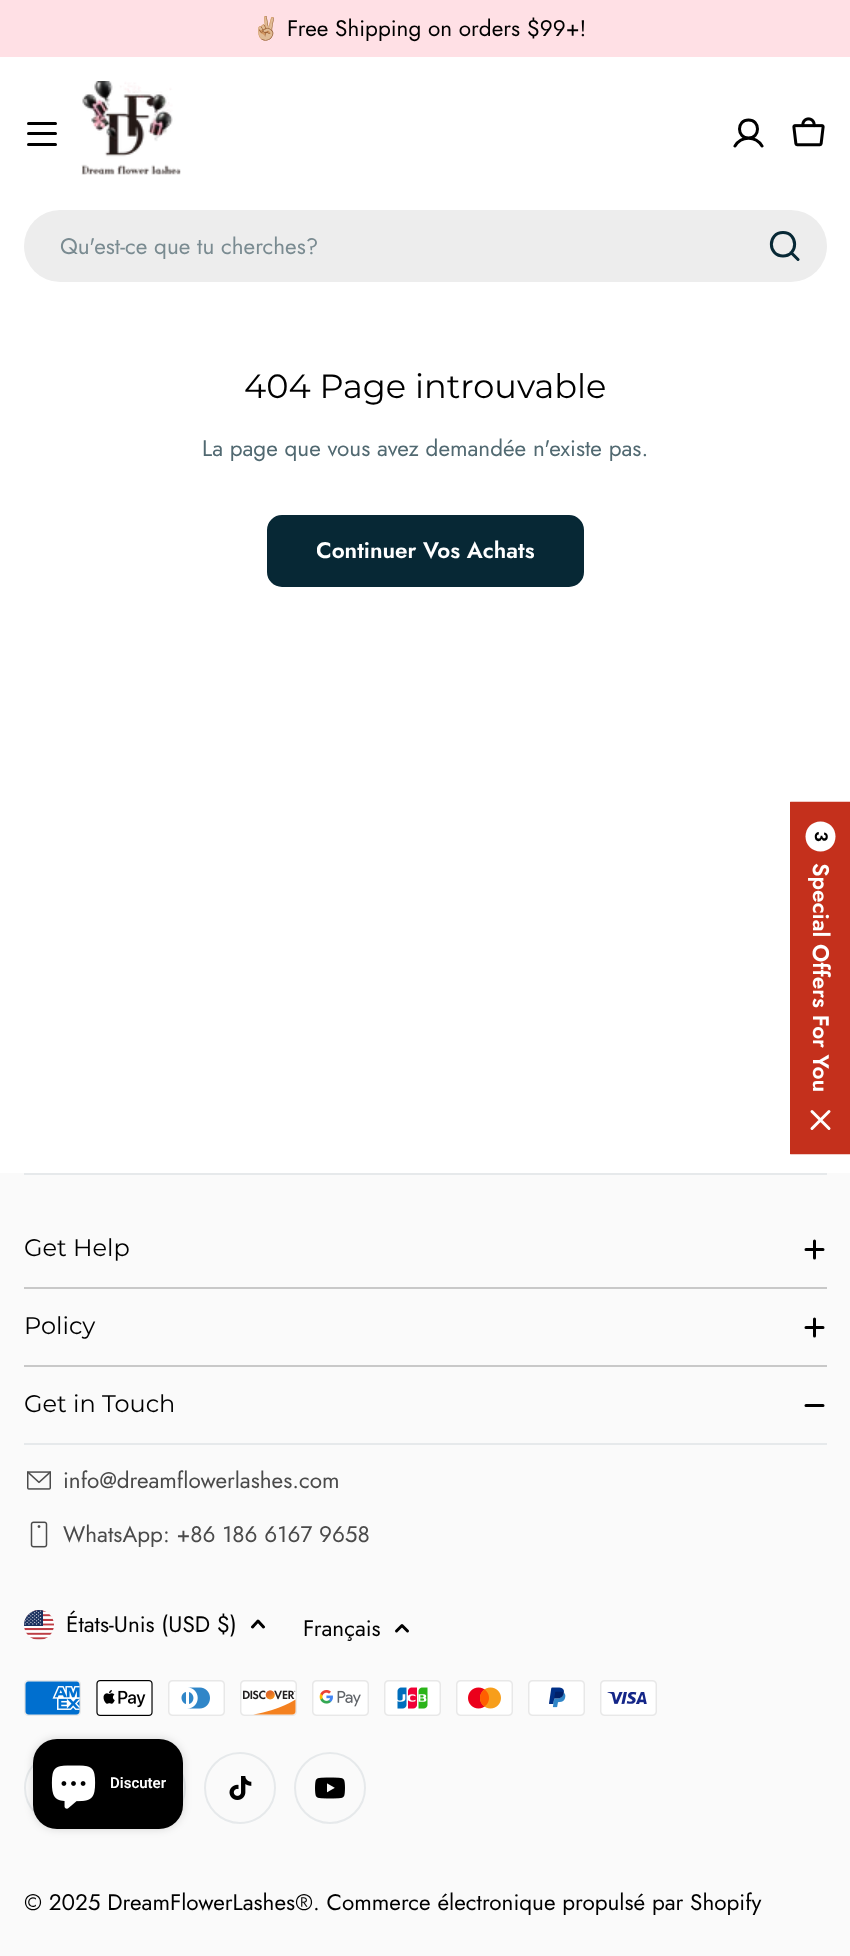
<svg xmlns="http://www.w3.org/2000/svg" width="850" height="1956" viewBox="0 0 850 1956">
  <defs>
    <clipPath id="clip1"><rect x="317" y="528" width="217" height="45"/></clipPath>
    <filter id="blur1" x="-50%" y="-200%" width="200%" height="500%"><feGaussianBlur stdDeviation="4"/></filter>
  </defs>
  <rect width="100%" height="100%" fill="#ffffff"/>
  <rect x="0" y="0" width="850" height="57" fill="#ffe0e5"/>
  <text x="252" y="36" font-family="Noto Color Emoji" font-size="22.5" fill="#000000">✌🏼</text>
  <text x="287" y="36" font-family="Jost" font-size="22.5" fill="#000000">Free Shipping on orders $99+!</text>
  <rect x="27" y="132" width="30" height="3" rx="1.5" fill="#000000"/>
  <rect x="27" y="122" width="30" height="3" rx="1.5" fill="#000000"/>
  <rect x="27" y="143" width="30" height="3" rx="1.5" fill="#000000"/>
  <image x="81" y="81" width="100" height="94" href="img1.png"/>
  <path d="M748.5 138C760.5 138 760.5 120 748.5 120C736.5 120 736.5 138 748.5 138ZM735 146C741 135.5 756 135.5 762 146" fill="none" stroke="#000000" stroke-width="3" stroke-linecap="round" stroke-linejoin="round"/>
  <image x="792" y="117" width="33" height="30" href="img2.png"/>
  <rect x="24" y="210" width="803" height="72" rx="36" fill="#ededed"/>
  <text x="60" y="254" font-family="Jost" font-size="22.5" fill="#7a8b91">Qu'est-ce que tu cherches?</text>
  <path d="M783 256C798.5 256 798.5 232.5 783 232.5C767.5 232.5 767.5 256 783 256ZM791 252.5L798 259.5" fill="none" stroke="#072835" stroke-width="3" stroke-linecap="round" stroke-linejoin="round"/>
  <text x="244" y="398" font-family="Montserrat" font-size="33.6" fill="#000000">404 Page introuvable</text>
  <text x="202" y="456" font-family="Jost" font-size="22.5" fill="#516971">La page que vous avez demandée n'existe pas.</text>
  <rect x="268" y="516" width="315" height="70" rx="14" fill="#072835" stroke="#072835" stroke-width="2"/>
  <g clip-path="url(#clip1)">
    <text x="316" y="558" font-family="Jost" font-size="22.5" font-weight="600" fill="#ffffff">Continuer Vos Achats</text>
  </g>
  <rect x="0" y="1173" width="850" height="783" fill="#fafafa"/>
  <rect x="24" y="1173" width="803" height="2" fill="#e6e9eb"/>
  <rect x="24" y="1287" width="803" height="2" fill="#c8c8c8"/>
  <text x="24" y="1256" font-family="Montserrat" font-size="24" fill="#000000">Get Help</text>
  <path d="M806 1249.5H823M814.5 1241V1258" fill="none" stroke="#000000" stroke-width="3" stroke-linecap="round" stroke-linejoin="round"/>
  <rect x="24" y="1365" width="803" height="2" fill="#c8c8c8"/>
  <text x="24" y="1334" font-family="Montserrat" font-size="24" fill="#000000">Policy</text>
  <path d="M806 1327.5H823M814.5 1319V1336" fill="none" stroke="#000000" stroke-width="3" stroke-linecap="round" stroke-linejoin="round"/>
  <rect x="24" y="1443" width="803" height="2" fill="#e6e9eb"/>
  <text x="24" y="1412" font-family="Montserrat" font-size="24" fill="#000000">Get in Touch</text>
  <path d="M806 1405.5H823M806 1405.5H823" fill="none" stroke="#000000" stroke-width="3" stroke-linecap="round" stroke-linejoin="round"/>
  <image x="27" y="1471" width="24" height="19" href="img3.png"/>
  <text x="63" y="1488" font-family="Jost" font-size="22.5" fill="#4a4a4a">info@dreamflowerlashes.com</text>
  <image x="30" y="1521" width="18" height="27" href="img4.png"/>
  <text x="63" y="1542" font-family="Jost" font-size="22.5" fill="#4a4a4a">WhatsApp: +86 186 6167 9658</text>
  <image x="24" y="1610" width="30" height="30" href="img5.png"/>
  <text x="66" y="1632" font-family="Jost" font-size="22.5" fill="#000000">États-Unis (USD $)</text>
  <path d="M252.5 1627L258 1621L263.5 1627" fill="none" stroke="#000000" stroke-width="3" stroke-linecap="round" stroke-linejoin="round"/>
  <text x="303" y="1636" font-family="Jost" font-size="22.5" fill="#000000">Français</text>
  <path d="M396.5 1631L402 1625.5L407.5 1631" fill="none" stroke="#000000" stroke-width="3" stroke-linecap="round" stroke-linejoin="round"/>
  <image x="24" y="1680" width="57" height="36" href="img6.png"/>
  <image x="96" y="1680" width="57" height="36" href="img7.png"/>
  <image x="168" y="1680" width="57" height="36" href="img8.png"/>
  <image x="240" y="1680" width="57" height="36" href="img9.png"/>
  <image x="312" y="1680" width="57" height="36" href="img10.png"/>
  <image x="384" y="1680" width="57" height="36" href="img11.png"/>
  <image x="456" y="1680" width="57" height="36" href="img12.png"/>
  <image x="528" y="1680" width="57" height="36" href="img13.png"/>
  <image x="600" y="1680" width="57" height="36" href="img14.png"/>
  <circle cx="60" cy="1788" r="35" fill="none" stroke="#e6e9eb" stroke-width="2"/>
  <circle cx="150" cy="1788" r="35" fill="none" stroke="#e6e9eb" stroke-width="2"/>
  <circle cx="240" cy="1788" r="35" fill="none" stroke="#e6e9eb" stroke-width="2"/>
  <image x="229" y="1776" width="23" height="24" href="img15.png"/>
  <circle cx="330" cy="1788" r="35" fill="none" stroke="#e6e9eb" stroke-width="2"/>
  <image x="315" y="1777" width="30" height="22" href="img16.png"/>
  <text x="24" y="1910" font-family="Jost" font-size="22.5" fill="#000000">© 2025 DreamFlowerLashes®. Commerce électronique propulsé par Shopify</text>
  <rect x="790" y="802" width="60" height="352" fill="#c4301c"/>
  <path d="M791 1153.5V802.5H850V1153.5Z" fill="none" stroke="#c4301c" stroke-width="1.5"/>
  <path d="M835.5 836.5C835.5 845 829 851.5 820.5 851.5C812 851.5 805.5 845 805.5 836.5C805.5 828 812 821.5 820.5 821.5C829 821.5 835.5 828 835.5 836.5Z" fill="#ffffff"/>
  <text x="815" y="831" transform="rotate(90 815 831)" font-family="Jost" font-size="18" font-weight="600" fill="#000000">3</text>
  <text x="813" y="863" transform="rotate(90 813 863)" font-family="Jost" font-size="22.5" font-weight="600" fill="#ffffff">Special Offers For You</text>
  <path d="M829 1128.5L812 1111.5M812 1128.5L829 1111.5" fill="none" stroke="#ffffff" stroke-width="3" stroke-linecap="round" stroke-linejoin="round"/>
  <rect x="33" y="1739" width="150" height="90" rx="24" fill="#000000" fill-opacity="0.15" filter="url(#blur1)"/>
  <rect x="33" y="1739" width="150" height="90" rx="24" fill="#000000"/>
  <image x="51" y="1765" width="45" height="44" href="img17.png"/>
  <text x="110" y="1788" font-family="Roboto" font-size="15" font-weight="600" fill="#ffffff">Discuter</text>
</svg>
